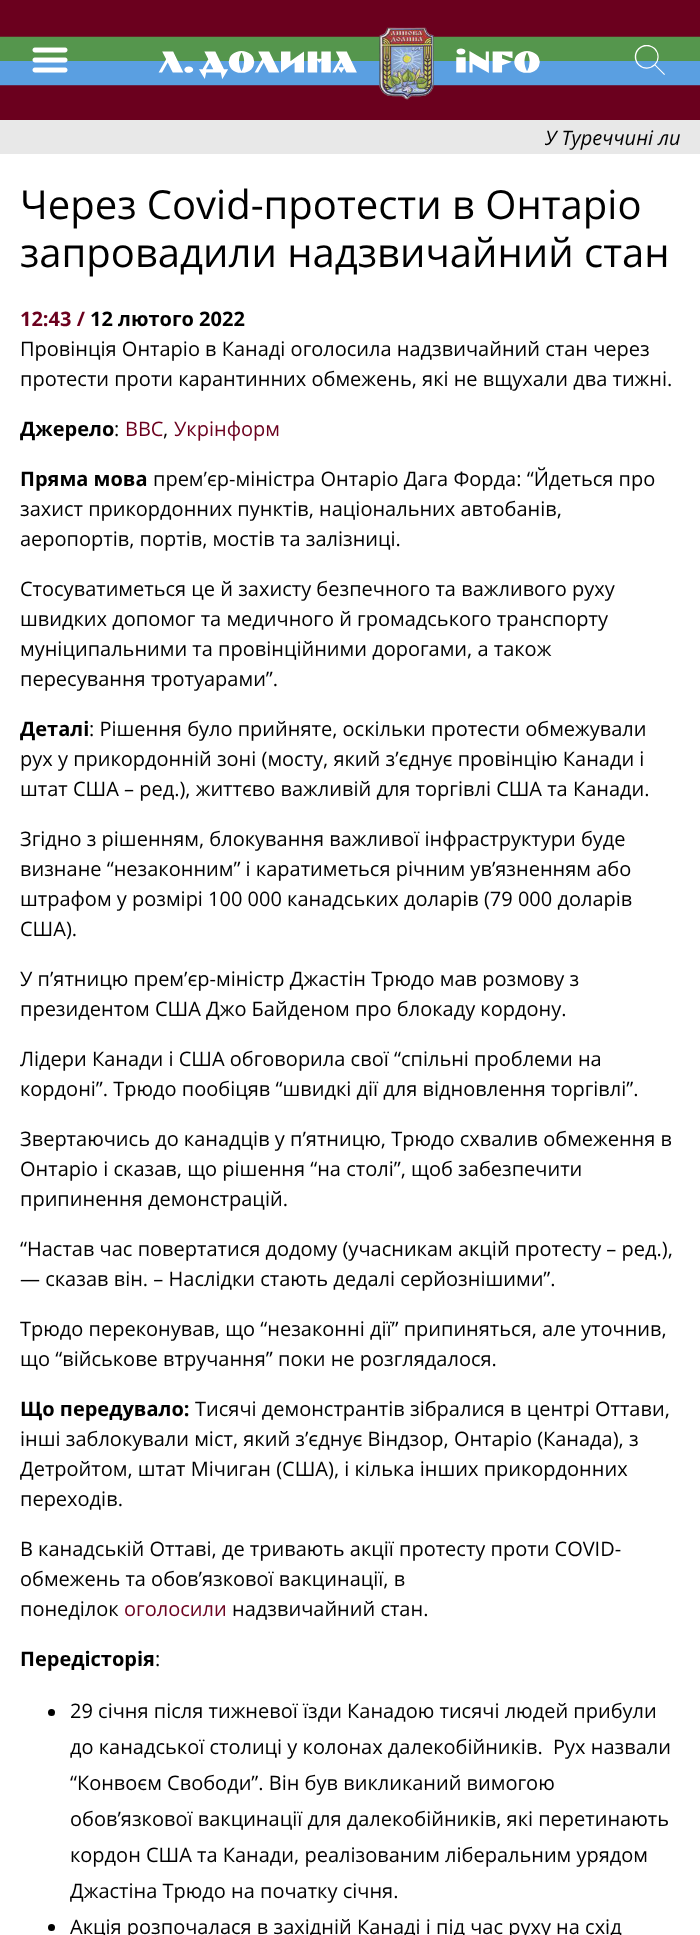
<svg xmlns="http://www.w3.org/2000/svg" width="700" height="1935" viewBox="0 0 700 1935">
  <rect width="100%" height="100%" fill="#ffffff"/>
  <rect x="0" y="0" width="700" height="120" fill="#6b001e"/>
  <image x="0" y="27" width="700" height="73" href="img1.png"/>
  <image x="32" y="47" width="36" height="26" href="img2.png"/>
  <image x="634" y="45" width="31" height="30" href="img3.png"/>
  <rect x="0" y="120" width="700" height="34" fill="#e8e8e8"/>
  <text x="545" y="145" font-family="Open Sans" font-size="20" font-style="italic" fill="#000000">У Туреччині ли</text>
  <text x="20" y="219" font-family="Open Sans" font-size="40" fill="#000000">Через Covid-протести в Онтаріо</text>
  <text x="20" y="267" font-family="Open Sans" font-size="40" fill="#000000">запровадили надзвичайний стан</text>
  <text x="20" y="326" font-family="Open Sans" font-size="20" font-weight="bold" fill="#6b001e">12:43 /</text>
  <text x="90" y="326" font-family="Open Sans" font-size="20" font-weight="bold" fill="#000000">12 лютого 2022</text>
  <text x="20" y="356" font-family="Open Sans" font-size="20" fill="#000000">Провінція Онтаріо в Канаді оголосила надзвичайний стан через</text>
  <text x="20" y="386" font-family="Open Sans" font-size="20" fill="#000000">протести проти карантинних обмежень, які не вщухали два тижні.</text>
  <text x="20" y="436" font-family="Open Sans" font-size="20" font-weight="bold" fill="#000000">Джерело</text>
  <text x="114" y="436" font-family="Open Sans" font-size="20" fill="#000000">:</text>
  <text x="125" y="436" font-family="Open Sans" font-size="20" fill="#6b001e">ВВС</text>
  <text x="163" y="436" font-family="Open Sans" font-size="20" fill="#000000">,</text>
  <text x="174" y="436" font-family="Open Sans" font-size="20" fill="#6b001e">Укрінформ</text>
  <text x="20" y="486" font-family="Open Sans" font-size="20" font-weight="bold" fill="#000000">Пряма мова</text>
  <text x="153" y="486" font-family="Open Sans" font-size="20" fill="#000000">прем’єр-міністра Онтаріо Дага Форда: “Йдеться про</text>
  <text x="20" y="516" font-family="Open Sans" font-size="20" fill="#000000">захист прикордонних пунктів, національних автобанів,</text>
  <text x="20" y="546" font-family="Open Sans" font-size="20" fill="#000000">аеропортів, портів, мостів та залізниці.</text>
  <text x="20" y="596" font-family="Open Sans" font-size="20" fill="#000000">Стосуватиметься це й захисту безпечного та важливого руху</text>
  <text x="20" y="626" font-family="Open Sans" font-size="20" fill="#000000">швидких допомог та медичного й громадського транспорту</text>
  <text x="20" y="656" font-family="Open Sans" font-size="20" fill="#000000">муніципальними та провінційними дорогами, а також</text>
  <text x="20" y="686" font-family="Open Sans" font-size="20" fill="#000000">пересування тротуарами”.</text>
  <text x="20" y="736" font-family="Open Sans" font-size="20" font-weight="bold" fill="#000000">Деталі</text>
  <text x="89" y="736" font-family="Open Sans" font-size="20" fill="#000000">: Рішення було прийняте, оскільки протести обмежували</text>
  <text x="20" y="766" font-family="Open Sans" font-size="20" fill="#000000">рух у прикордонній зоні (мосту, який з’єднує провінцію Канади і</text>
  <text x="20" y="796" font-family="Open Sans" font-size="20" fill="#000000">штат США – ред.), життєво важливій для торгівлі США та Канади.</text>
  <text x="20" y="846" font-family="Open Sans" font-size="20" fill="#000000">Згідно з рішенням, блокування важливої інфраструктури буде</text>
  <text x="20" y="876" font-family="Open Sans" font-size="20" fill="#000000">визнане “незаконним” і каратиметься річним ув’язненням або</text>
  <text x="20" y="906" font-family="Open Sans" font-size="20" fill="#000000">штрафом у розмірі 100 000 канадських доларів (79 000 доларів</text>
  <text x="20" y="936" font-family="Open Sans" font-size="20" fill="#000000">США).</text>
  <text x="20" y="986" font-family="Open Sans" font-size="20" fill="#000000">У п’ятницю прем’єр-міністр Джастін Трюдо мав розмову з</text>
  <text x="20" y="1016" font-family="Open Sans" font-size="20" fill="#000000">президентом США Джо Байденом про блокаду кордону.</text>
  <text x="20" y="1066" font-family="Open Sans" font-size="20" fill="#000000">Лідери Канади і США обговорила свої “спільні проблеми на</text>
  <text x="20" y="1096" font-family="Open Sans" font-size="20" fill="#000000">кордоні”. Трюдо пообіцяв “швидкі дії для відновлення торгівлі”.</text>
  <text x="20" y="1146" font-family="Open Sans" font-size="20" fill="#000000">Звертаючись до канадців у п’ятницю, Трюдо схвалив обмеження в</text>
  <text x="20" y="1176" font-family="Open Sans" font-size="20" fill="#000000">Онтаріо і сказав, що рішення “на столі”, щоб забезпечити</text>
  <text x="20" y="1206" font-family="Open Sans" font-size="20" fill="#000000">припинення демонстрацій.</text>
  <text x="20" y="1256" font-family="Open Sans" font-size="20" fill="#000000">“Настав час повертатися додому (учасникам акцій протесту – ред.),</text>
  <text x="20" y="1286" font-family="Open Sans" font-size="20" fill="#000000">— сказав він. – Наслідки стають дедалі серйознішими”.</text>
  <text x="20" y="1336" font-family="Open Sans" font-size="20" fill="#000000">Трюдо переконував, що “незаконні дії” припиняться, але уточнив,</text>
  <text x="20" y="1366" font-family="Open Sans" font-size="20" fill="#000000">що “військове втручання” поки не розглядалося.</text>
  <text x="20" y="1416" font-family="Open Sans" font-size="20" font-weight="bold" fill="#000000">Що передувало:</text>
  <text x="195" y="1416" font-family="Open Sans" font-size="20" fill="#000000">Тисячі демонстрантів зібралися в центрі Оттави,</text>
  <text x="20" y="1446" font-family="Open Sans" font-size="20" fill="#000000">інші заблокували міст, який з’єднує Віндзор, Онтаріо (Канада), з</text>
  <text x="20" y="1476" font-family="Open Sans" font-size="20" fill="#000000">Детройтом, штат Мічиган (США), і кілька інших прикордонних</text>
  <text x="20" y="1506" font-family="Open Sans" font-size="20" fill="#000000">переходів.</text>
  <text x="20" y="1556" font-family="Open Sans" font-size="20" fill="#000000">В канадській Оттаві, де тривають акції протесту проти COVID-</text>
  <text x="20" y="1586" font-family="Open Sans" font-size="20" fill="#000000">обмежень та обов’язкової вакцинації, в</text>
  <text x="20" y="1616" font-family="Open Sans" font-size="20" fill="#000000">понеділок</text>
  <text x="124" y="1616" font-family="Open Sans" font-size="20" fill="#6b001e">оголосили</text>
  <text x="232" y="1616" font-family="Open Sans" font-size="20" fill="#000000">надзвичайний стан.</text>
  <text x="20" y="1666" font-family="Open Sans" font-size="20" font-weight="bold" fill="#000000">Передісторія</text>
  <text x="155" y="1666" font-family="Open Sans" font-size="20" fill="#000000">:</text>
  <circle cx="51.5" cy="1712.5" r="3.5" fill="#000000"/>
  <text x="70" y="1718" font-family="Open Sans" font-size="20" fill="#000000">29 січня після тижневої їзди Канадою тисячі людей прибули</text>
  <text x="70" y="1754" font-family="Open Sans" font-size="20" fill="#000000" xml:space="preserve">до канадської столиці у колонах далекобійників.  Рух назвали</text>
  <text x="70" y="1790" font-family="Open Sans" font-size="20" fill="#000000">“Конвоєм Свободи”. Він був викликаний вимогою</text>
  <text x="70" y="1826" font-family="Open Sans" font-size="20" fill="#000000">обов’язкової вакцинації для далекобійників, які перетинають</text>
  <text x="70" y="1862" font-family="Open Sans" font-size="20" fill="#000000">кордон США та Канади, реалізованим ліберальним урядом</text>
  <text x="70" y="1898" font-family="Open Sans" font-size="20" fill="#000000">Джастіна Трюдо на початку січня.</text>
  <circle cx="51.5" cy="1927.5" r="3.5" fill="#000000"/>
  <text x="70" y="1934" font-family="Open Sans" font-size="20" fill="#000000">Акція розпочалася в західній Канаді і під час руху на схід</text>
</svg>
